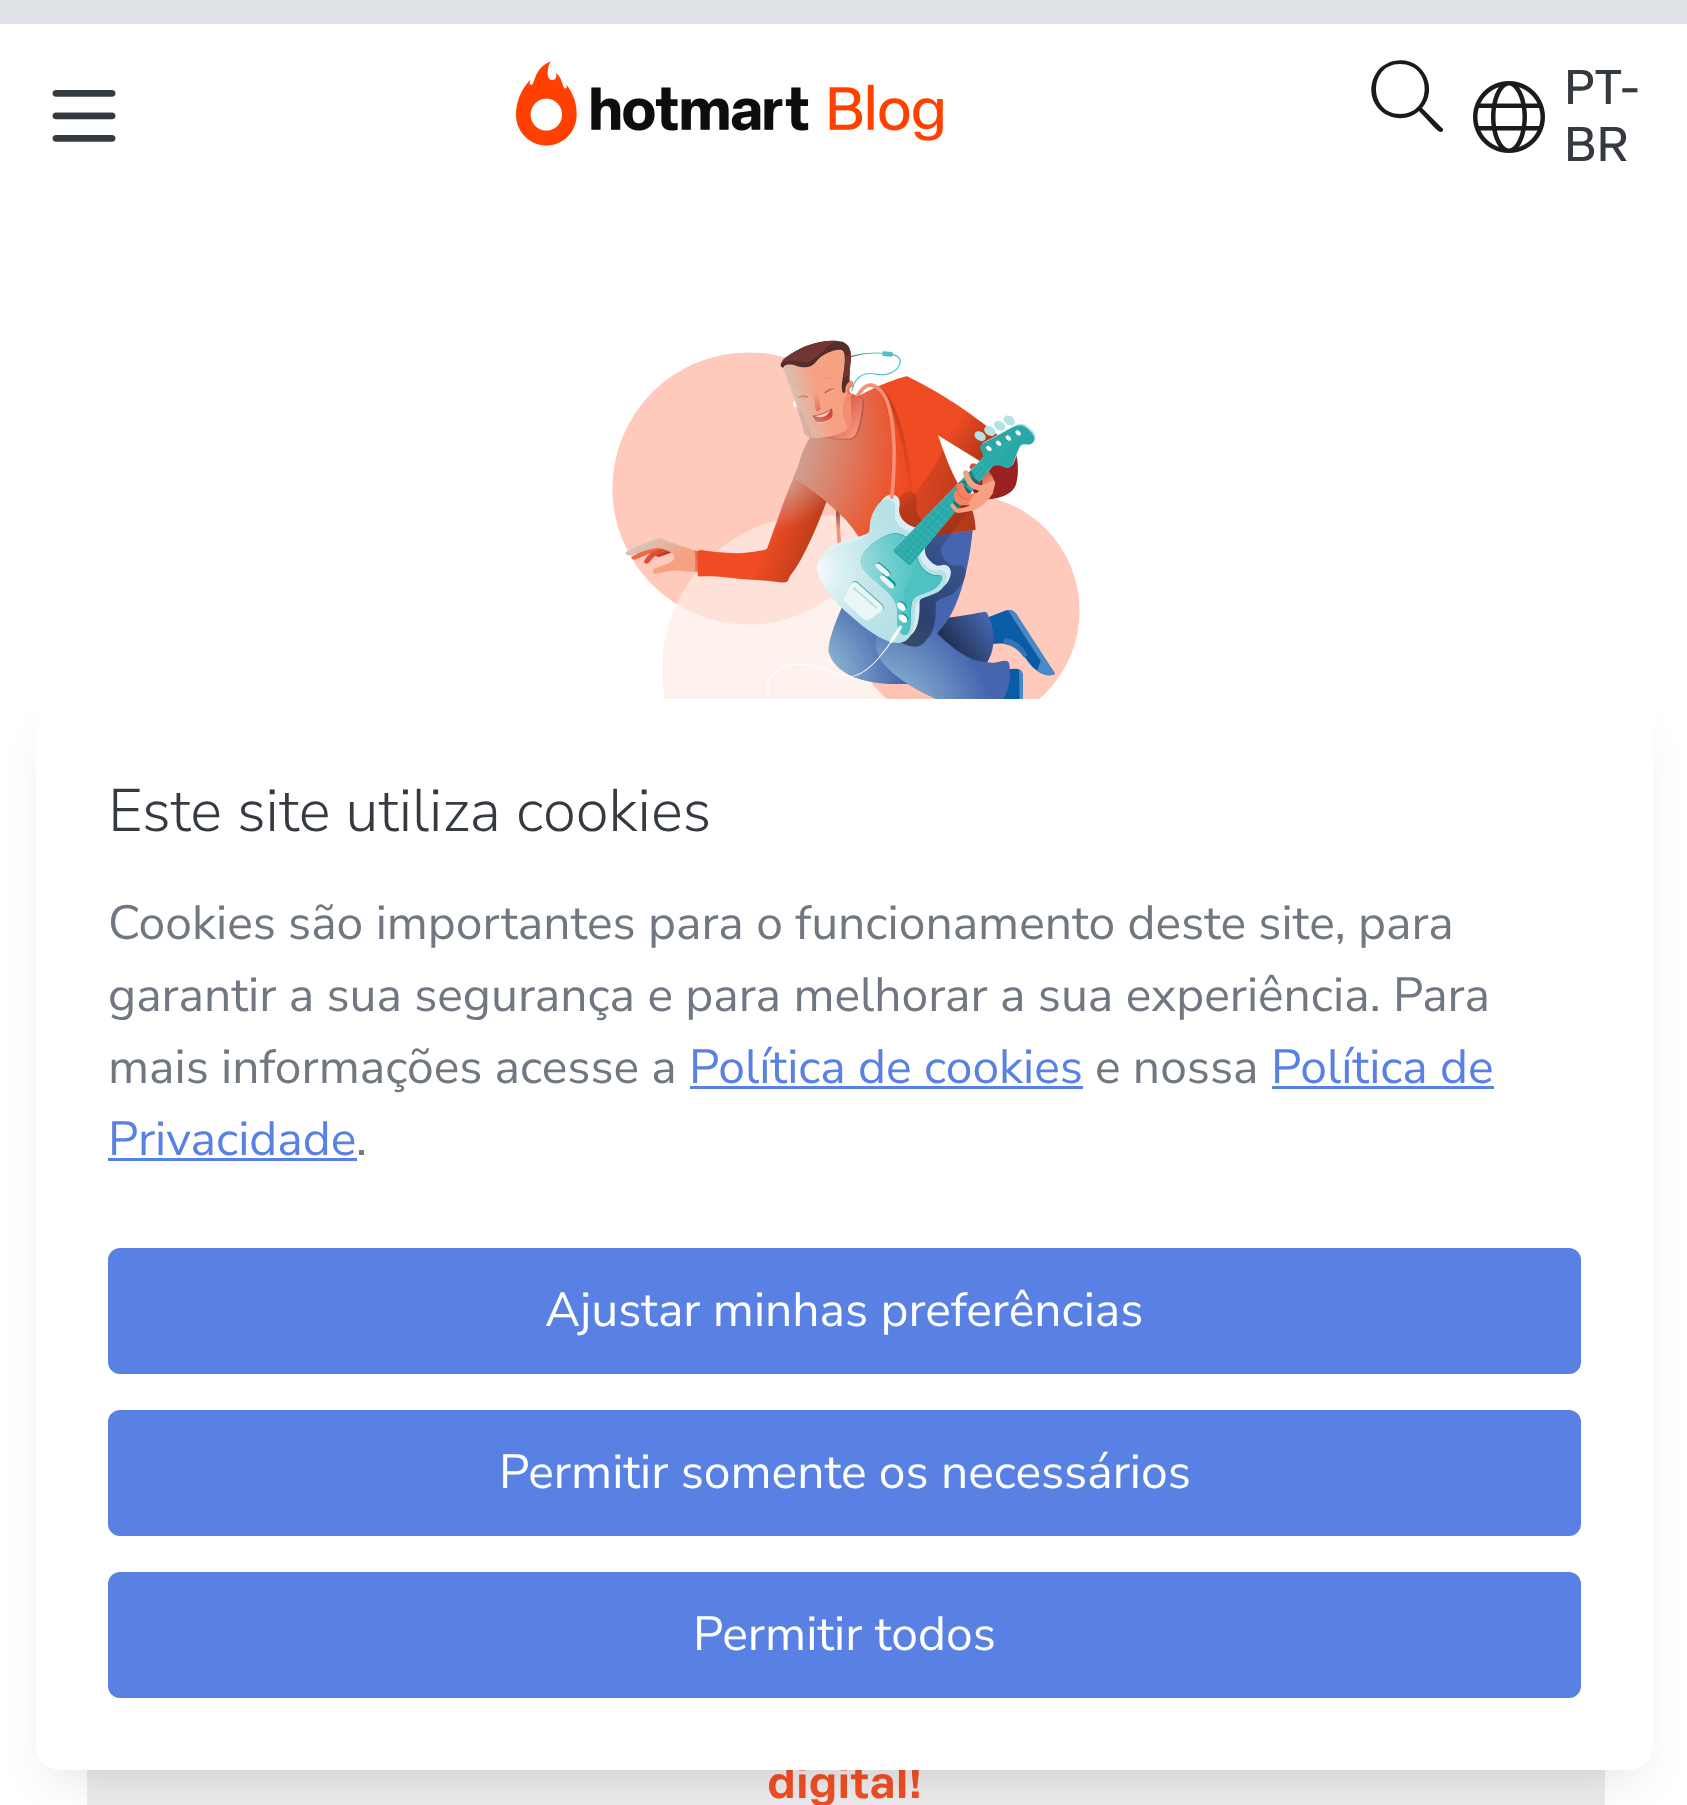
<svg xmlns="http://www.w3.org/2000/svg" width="1687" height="1805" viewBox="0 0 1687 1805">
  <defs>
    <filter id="blur1" x="-50%" y="-200%" width="200%" height="500%"><feGaussianBlur stdDeviation="24"/></filter>
  </defs>
  <rect width="100%" height="100%" fill="#ffffff"/>
  <rect x="0" y="0" width="1687" height="24" fill="#dfe2e6"/>
  <image x="52" y="90" width="64" height="52" href="img1.png"/>
  <image x="516" y="61" width="427" height="85" href="img2.png"/>
  <path d="M1442 128L1422 108C1440 88 1422 55 1394 61C1389 62 1383 65 1379 69C1376 73 1373 78 1372 83C1366 111 1399 129 1419 111L1432 125C1434 127 1438 132 1441 132C1443 132 1444 129 1442 128ZM1400 114C1368 114 1368 64 1400 64C1433 64 1433 114 1400 114Z" fill="#191c1f"/>
  <image x="1473" y="81" width="72" height="72" href="img3.png"/>
  <text x="1564" y="104" font-family="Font" font-size="48" fill="#353a40">PT-</text>
  <text x="1564" y="161" font-family="Font" font-size="48" fill="#353a40">BR</text>
  <image x="612" y="340" width="468" height="359" href="img4.png"/>
  <rect x="87" y="1770" width="1518" height="35" fill="#eceaea"/>
  <text x="767" y="1798" font-family="Font" font-size="45.5" font-weight="bold" fill="#ef4e23">digital!</text>
  <rect x="54" y="741" width="1581" height="1035" rx="6" fill="#000000" fill-opacity="0.12" filter="url(#blur1)"/>
  <rect x="36" y="699" width="1617" height="1071" rx="24" fill="#ffffff"/>
  <text x="108" y="831" font-family="Nunito Sans" font-size="60" font-weight="300" fill="#353a40">Este site utiliza cookies</text>
  <text x="108" y="939" font-family="Nunito Sans" font-size="48" fill="#707780">Cookies são importantes para o funcionamento deste site, para</text>
  <text x="108" y="1011" font-family="Nunito Sans" font-size="48" fill="#707780">garantir a sua segurança e para melhorar a sua experiência. Para</text>
  <text x="108" y="1083" font-family="Nunito Sans" font-size="48" fill="#707780">mais informações acesse a</text>
  <text x="689" y="1083" font-family="Nunito Sans" font-size="48" fill="#5981e3">Política de cookies</text>
  <rect x="690" y="1086" width="393" height="3" fill="#5981e3"/>
  <text x="1095" y="1083" font-family="Nunito Sans" font-size="48" fill="#707780">e nossa</text>
  <text x="1271" y="1083" font-family="Nunito Sans" font-size="48" fill="#5981e3">Política de</text>
  <rect x="1272" y="1086" width="222" height="3" fill="#5981e3"/>
  <text x="108" y="1155" font-family="Nunito Sans" font-size="48" fill="#5981e3">Privacidade</text>
  <rect x="108" y="1158" width="249" height="3" fill="#5981e3"/>
  <text x="356" y="1155" font-family="Nunito Sans" font-size="48" fill="#707780">.</text>
  <rect x="109.5" y="1249.5" width="1470" height="123" rx="10.5" fill="#5981e3" stroke="#5981e3" stroke-width="3"/>
  <text x="545" y="1326" font-family="Nunito Sans" font-size="48" fill="#ffffff">Ajustar minhas preferências</text>
  <rect x="109.5" y="1411.5" width="1470" height="123" rx="10.5" fill="#5981e3" stroke="#5981e3" stroke-width="3"/>
  <text x="499" y="1488" font-family="Nunito Sans" font-size="48" fill="#ffffff">Permitir somente os necessários</text>
  <rect x="109.5" y="1573.5" width="1470" height="123" rx="10.5" fill="#5981e3" stroke="#5981e3" stroke-width="3"/>
  <text x="693" y="1650" font-family="Nunito Sans" font-size="48" fill="#ffffff">Permitir todos</text>
</svg>
